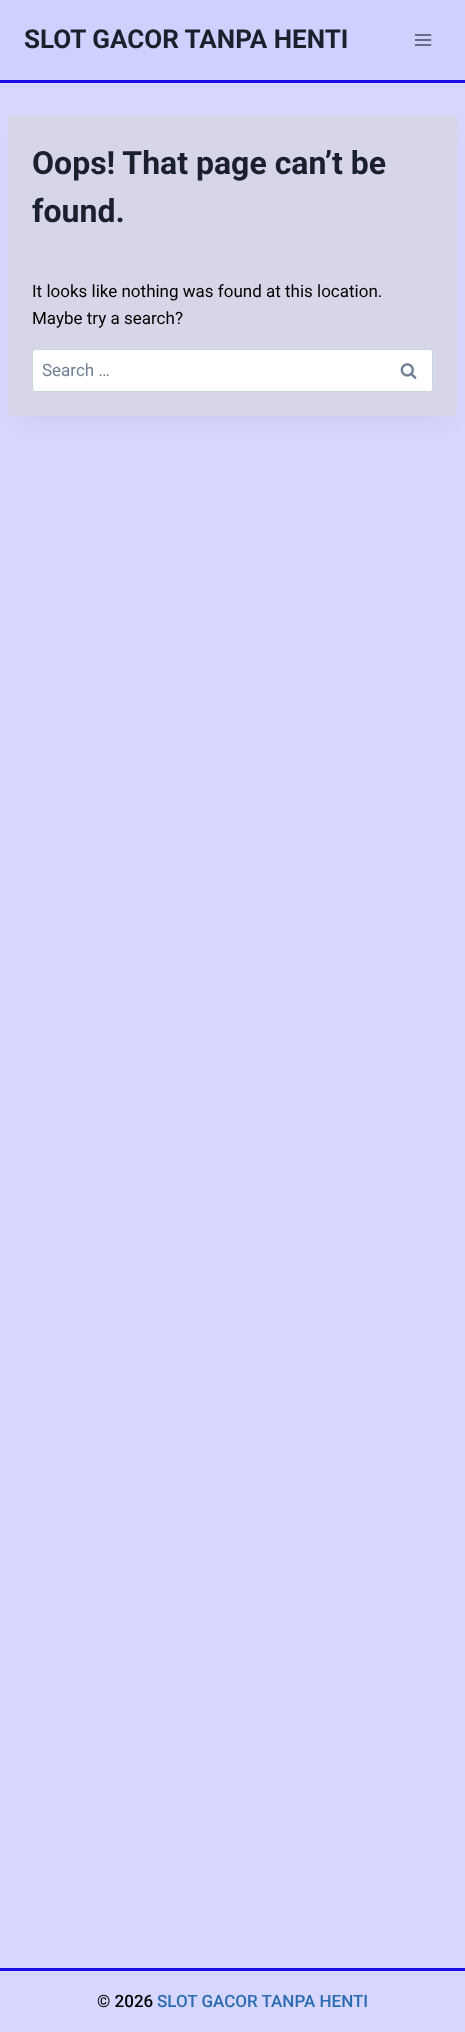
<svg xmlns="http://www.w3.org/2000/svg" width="465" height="2032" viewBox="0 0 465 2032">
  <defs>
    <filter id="blur1" x="-50%" y="-200%" width="200%" height="500%"><feGaussianBlur stdDeviation="12.5"/></filter>
  </defs>
  <rect width="100%" height="100%" fill="#d6d6ff"/>
  <rect x="0" y="0" width="465" height="80" fill="#d0d0ff"/>
  <rect x="0" y="80" width="465" height="3" fill="#190ce7"/>
  <text x="24" y="48" font-family="Roboto" font-size="26" font-weight="bold" fill="#1a202c">SLOT GACOR TANPA HENTI</text>
  <image x="414" y="34" width="18" height="12" href="img1.png"/>
  <rect x="18" y="140" width="429" height="281" fill="#000000" fill-opacity="0.05" filter="url(#blur1)"/>
  <rect x="8" y="115" width="449" height="301" rx="4" fill="#d6d6e8"/>
  <text x="32" y="174" font-family="Roboto" font-size="32" font-weight="bold" fill="#1a202c">Oops! That page can’t be</text>
  <text x="32" y="222" font-family="Roboto" font-size="32" font-weight="bold" fill="#1a202c">found.</text>
  <text x="32" y="297" font-family="Roboto" font-size="17" fill="#000000">It looks like nothing was found at this location.</text>
  <text x="32" y="324" font-family="Roboto" font-size="17" fill="#000000">Maybe try a search?</text>
  <rect x="32.5" y="349.5" width="400" height="42" rx="2.5" fill="#ffffff" stroke="#cbd5e0"/>
  <text x="42" y="376" font-family="Roboto" font-size="17" fill="#718096">Search …</text>
  <image x="400" y="363" width="17" height="16" href="img2.png"/>
  <rect x="0" y="1968" width="465" height="3" fill="#190ce7"/>
  <text x="97" y="2007" font-family="Roboto" font-size="17" font-weight="500" fill="#000000">© 2026</text>
  <text x="157" y="2007" font-family="Roboto" font-size="17" font-weight="500" fill="#2b6cb0">SLOT GACOR TANPA HENTI</text>
</svg>
